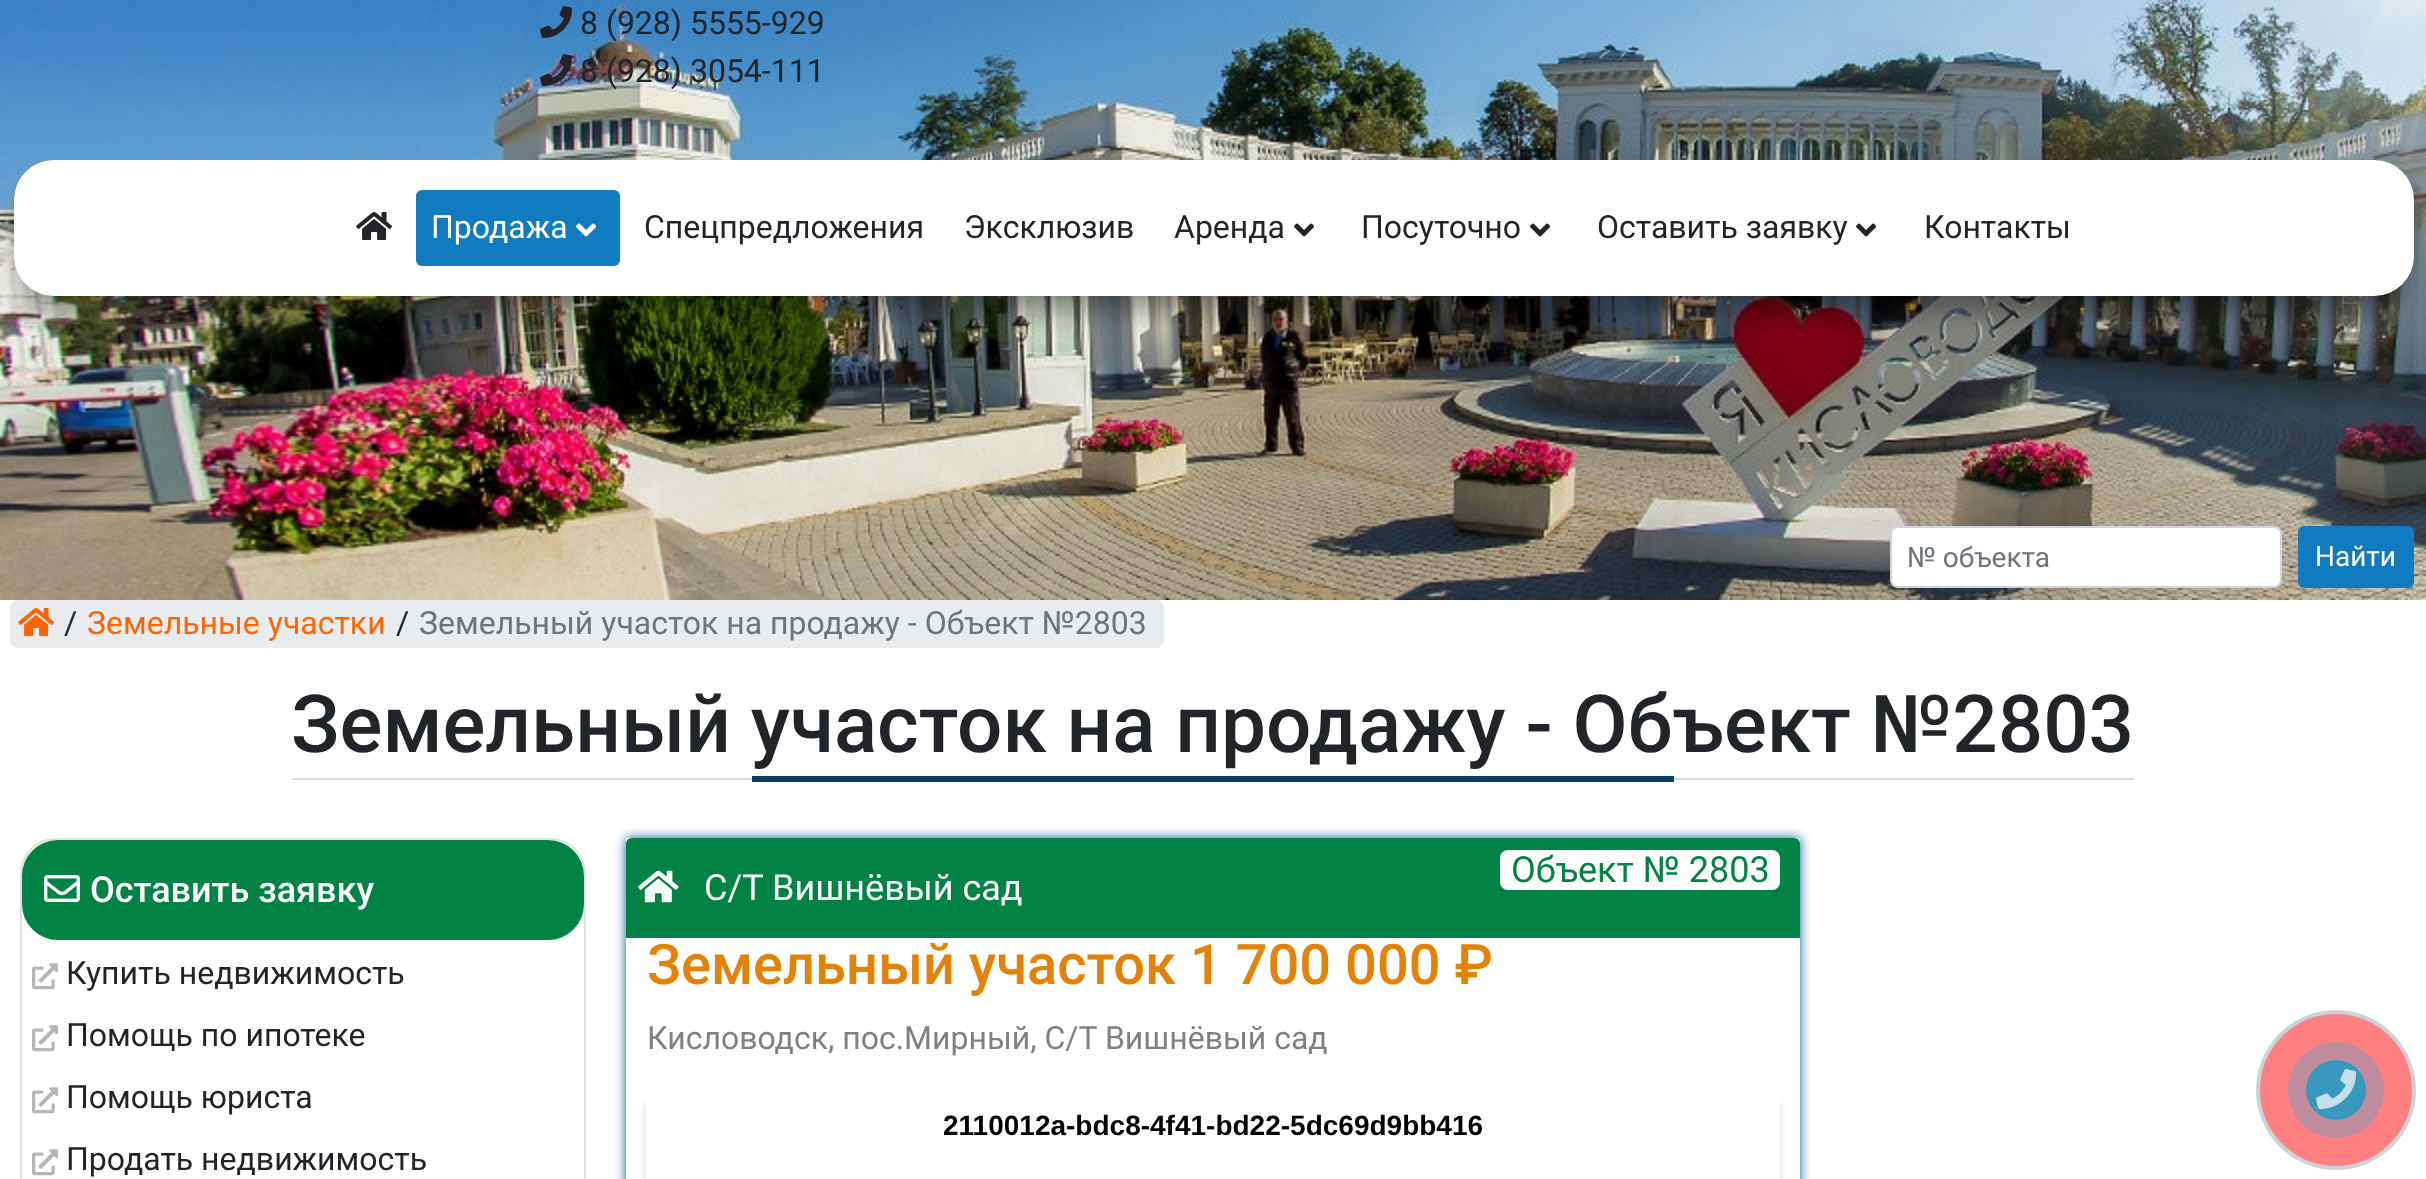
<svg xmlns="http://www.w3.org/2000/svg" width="2426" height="1179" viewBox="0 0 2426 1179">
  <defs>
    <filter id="blur1" x="-50%" y="-200%" width="200%" height="500%"><feGaussianBlur stdDeviation="14"/></filter>
    <clipPath id="clip1"><path d="M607 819H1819V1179H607ZM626 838H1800V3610H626Z" clip-rule="evenodd"/></clipPath>
    <filter id="blur2" x="-50%" y="-200%" width="200%" height="500%"><feGaussianBlur stdDeviation="6"/></filter>
    <clipPath id="clip2"><path d="M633 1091H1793V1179H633ZM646 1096H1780V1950H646Z" clip-rule="evenodd"/></clipPath>
    <filter id="blur3" x="-50%" y="-200%" width="200%" height="500%"><feGaussianBlur stdDeviation="4"/></filter>
  </defs>
  <rect width="100%" height="100%" fill="#ffffff"/>
  <image x="0" y="0" width="2426" height="600" href="img6.png"/>
  <image x="540" y="6" width="33" height="32" href="img1.png"/>
  <text x="580" y="34" font-family="Roboto" font-size="32" fill="#212529">8 (928) 5555-929</text>
  <image x="540" y="54" width="32" height="32" href="img2.png"/>
  <text x="580" y="82" font-family="Roboto" font-size="32" fill="#212529">8 (928) 3054-111</text>
  <rect x="20" y="186" width="2388" height="124" rx="34" fill="#000000" fill-opacity="0.4" filter="url(#blur1)"/>
  <rect x="14" y="160" width="2400" height="136" rx="40" fill="#ffffff"/>
  <image x="356" y="212" width="36" height="28" href="img3.png"/>
  <rect x="416" y="190" width="204" height="76" rx="6" fill="#117bbf"/>
  <text x="431" y="238" font-family="Roboto" font-size="32" fill="#ffffff">Продажа</text>
  <image x="576" y="223" width="20" height="14" href="img4.png"/>
  <text x="644" y="238" font-family="Roboto" font-size="32" fill="#212529">Спецпредложения</text>
  <text x="964" y="238" font-family="Roboto" font-size="32" fill="#212529">Эксклюзив</text>
  <text x="1174" y="238" font-family="Roboto" font-size="32" fill="#212529">Аренда</text>
  <image x="1294" y="223" width="20" height="14" href="img5.png"/>
  <text x="1361" y="238" font-family="Roboto" font-size="32" fill="#212529">Посуточно</text>
  <image x="1530" y="223" width="20" height="14" href="img5.png"/>
  <text x="1597" y="238" font-family="Roboto" font-size="32" fill="#212529">Оставить заявку</text>
  <image x="1856" y="223" width="20" height="14" href="img5.png"/>
  <text x="1924" y="238" font-family="Roboto" font-size="32" fill="#212529">Контакты</text>
  <rect x="1891" y="527" width="390" height="60" rx="7" fill="#ffffff" stroke="#ced4da" stroke-width="2"/>
  <text x="1907" y="567" font-family="Roboto" font-size="28" fill="#6c757d">№ объекта</text>
  <rect x="2299" y="527" width="114" height="60" rx="5" fill="#117bbf" stroke="#117bbf" stroke-width="2"/>
  <text x="2315" y="566" font-family="Roboto" font-size="28" fill="#ffffff">Найти</text>
  <rect x="10" y="600" width="1154" height="48" rx="8" fill="#e9ecef"/>
  <image x="18" y="608" width="36" height="28" href="img7.png"/>
  <text x="64" y="634" font-family="Roboto" font-size="32" fill="#212529">/</text>
  <text x="87" y="634" font-family="Roboto" font-size="32" fill="#ff6400">Земельные участки</text>
  <text x="396" y="634" font-family="Roboto" font-size="32" fill="#212529">/</text>
  <text x="419" y="634" font-family="Roboto" font-size="32" fill="#6c757d">Земельный участок на продажу - Объект №2803</text>
  <text x="291" y="752" font-family="Roboto" font-size="80" font-weight="500" fill="#212529">Земельный участок на продажу - Объект №2803</text>
  <rect x="292" y="778" width="1842" height="2" fill="#dadada"/>
  <rect x="752" y="776" width="922" height="6" fill="#093f63"/>
  <path d="M56 839H550C569.5 839 585 854.5 585 874V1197C585 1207.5 576.5 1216 566 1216H40C29.5 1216 21 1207.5 21 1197V874C21 854.5 36.5 839 56 839Z" fill="none" stroke="#dfdfdf" stroke-width="2"/>
  <rect x="23" y="841" width="560" height="98" rx="35" fill="#028345" stroke="#028345" stroke-width="2"/>
  <image x="44" y="875" width="36" height="27" href="img8.png"/>
  <text x="90" y="902" font-family="Roboto" font-size="36" font-weight="500" fill="#ffffff">Оставить заявку</text>
  <image x="32" y="963" width="26" height="27" href="img9.png"/>
  <text x="66" y="984" font-family="Roboto" font-size="32" fill="#212529">Купить недвижимость</text>
  <image x="32" y="1025" width="26" height="27" href="img9.png"/>
  <text x="66" y="1046" font-family="Roboto" font-size="32" fill="#212529">Помощь по ипотеке</text>
  <image x="32" y="1087" width="26" height="27" href="img9.png"/>
  <text x="66" y="1108" font-family="Roboto" font-size="32" fill="#212529">Помощь юриста</text>
  <image x="32" y="1149" width="26" height="27" href="img9.png"/>
  <text x="66" y="1170" font-family="Roboto" font-size="32" fill="#212529">Продать недвижимость</text>
  <g clip-path="url(#clip1)">
    <rect x="626" y="838" width="1174" height="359" fill="#0d5d91" filter="url(#blur2)"/>
  </g>
  <path d="M632 839H1794C1797 839 1799 841 1799 844V937H627V844C627 841 629 839 632 839Z" fill="#028345" stroke="#028345" stroke-width="2"/>
  <image x="638" y="870" width="41" height="33" href="img10.png"/>
  <text x="704" y="900" font-family="Roboto" font-size="36" fill="#ffffff">С/Т Вишнёвый сад</text>
  <rect x="1500" y="850" width="280" height="40" rx="8" fill="#ffffff"/>
  <text x="1511" y="882" font-family="Roboto" font-size="36" fill="#028345">Объект № 2803</text>
  <text x="647" y="984" font-family="Roboto" font-size="56" font-weight="500" fill="#e38207">Земельный участок 1 700 000 ₽</text>
  <text x="647" y="1049" font-family="Roboto" font-size="32" fill="#808080">Кисловодск, пос.Мирный, С/Т Вишнёвый сад</text>
  <g clip-path="url(#clip2)">
    <rect x="646" y="1104" width="1134" height="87" fill="#000000" fill-opacity="0.15" filter="url(#blur3)"/>
  </g>
  <text x="943" y="1135" font-family="Liberation Sans" font-size="28" font-weight="bold" fill="#000000">2110012a-bdc8-4f41-bd22-5dc69d9bb416</text>
  <circle cx="2336" cy="1090" r="78" fill="#ff8080" stroke="#c9d4d9" stroke-width="4"/>
  <circle cx="2336" cy="1090" r="48" fill="#be8c9d"/>
  <circle cx="2336" cy="1090" r="30" fill="#3998be"/>
  <image x="2316" y="1069" width="41" height="40" href="img11.png"/>
</svg>
